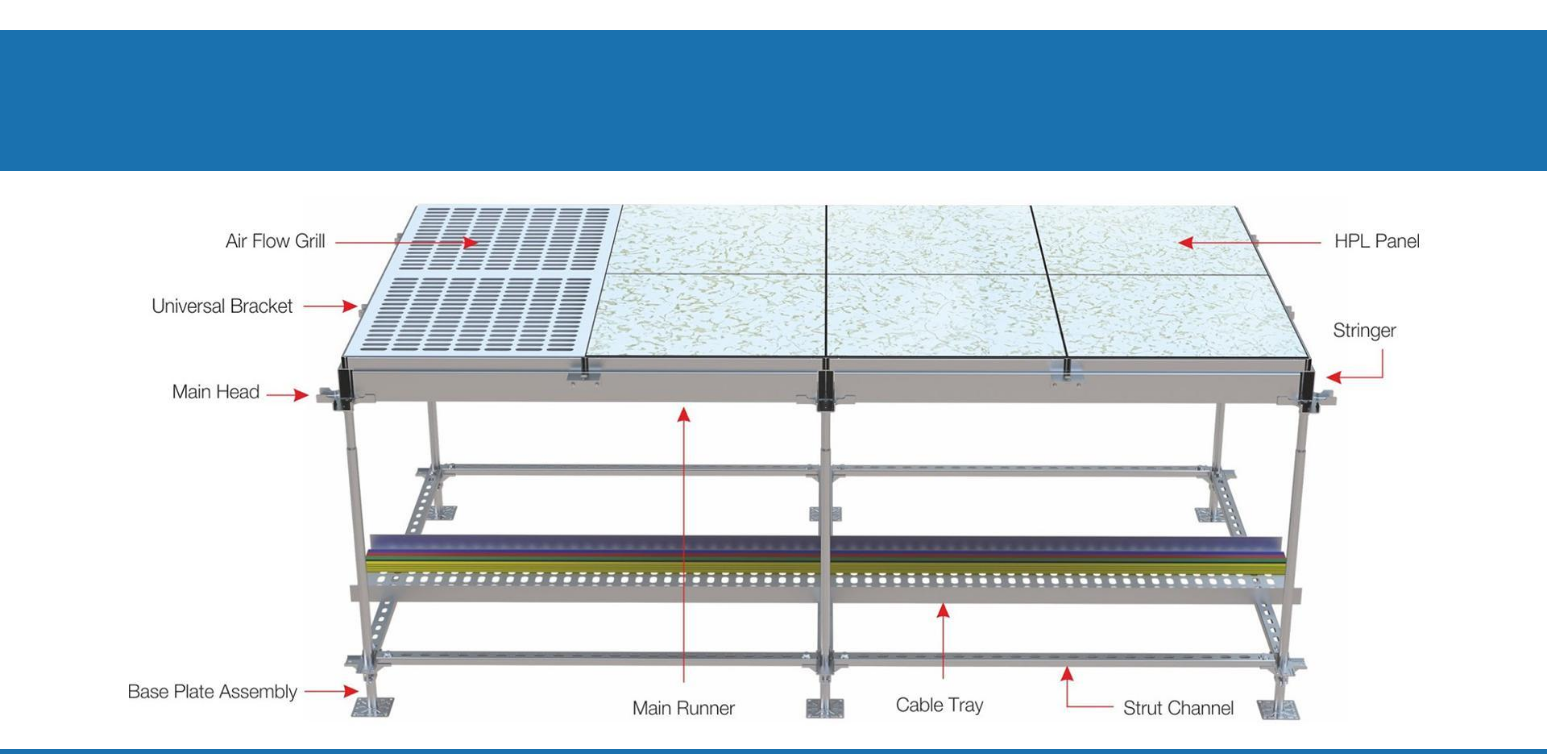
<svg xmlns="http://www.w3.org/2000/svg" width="1547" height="754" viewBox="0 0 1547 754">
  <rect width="100%" height="100%" fill="#ffffff"/>
  <rect x="0" y="30" width="1547" height="724" fill="#1a71af"/>
  <image x="0" y="171" width="1547" height="578" href="img1.png"/>
</svg>
